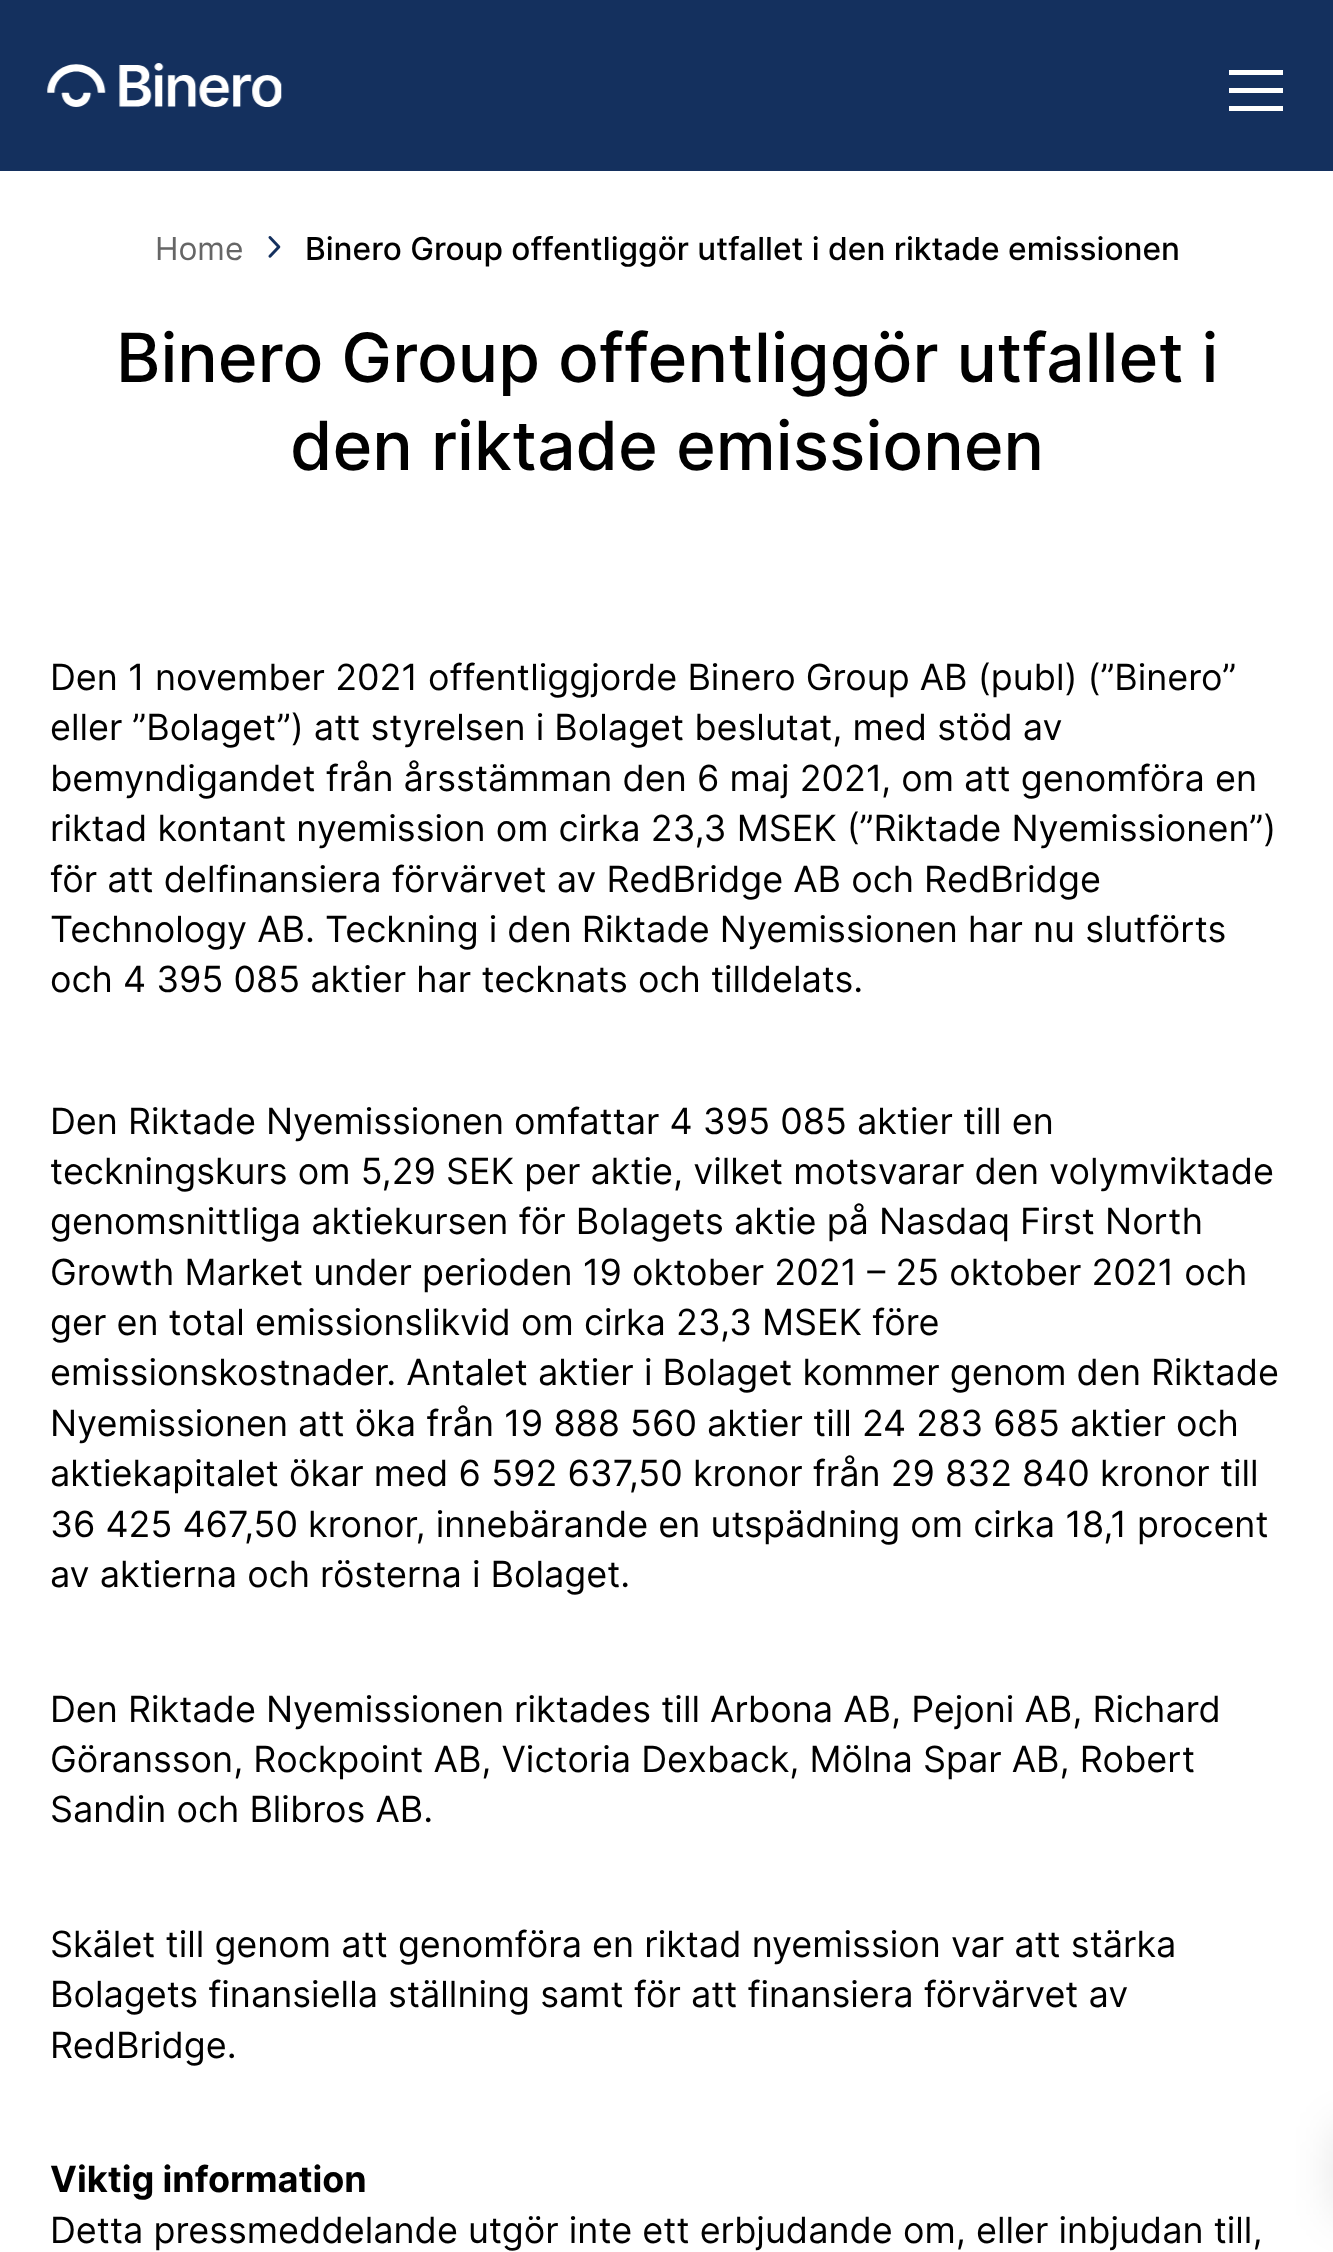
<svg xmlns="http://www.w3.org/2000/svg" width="1333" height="2252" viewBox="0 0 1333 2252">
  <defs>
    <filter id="blur1" x="-50%" y="-200%" width="200%" height="500%"><feGaussianBlur stdDeviation="22.5"/></filter>
  </defs>
  <rect width="100%" height="100%" fill="#ffffff"/>
  <rect x="0" y="0" width="1333" height="171" fill="#14305e"/>
  <image x="47" y="63" width="235" height="44" href="img1.png"/>
  <rect x="1229" y="88" width="54" height="5" fill="#ffffff"/>
  <rect x="1229" y="70" width="54" height="5" fill="#ffffff"/>
  <rect x="1229" y="106" width="54" height="5" fill="#ffffff"/>
  <text x="155" y="260" font-family="Inter" font-size="31.7" fill="#666666">Home</text>
  <image x="268" y="236" width="13" height="22" href="img2.png"/>
  <text x="305" y="260" font-family="Inter" font-size="31.7" font-weight="500" fill="#000000">Binero Group offentliggör utfallet i den riktade emissionen</text>
  <text x="116" y="382" font-family="Inter" font-size="67.9" font-weight="500" fill="#000000">Binero Group offentliggör utfallet i</text>
  <text x="290" y="470" font-family="Inter" font-size="67.9" font-weight="500" fill="#000000">den riktade emissionen</text>
  <text x="50" y="690" font-family="Inter" font-size="36" fill="#000000">Den 1 november 2021 offentliggjorde Binero Group AB (publ) (”Binero”</text>
  <text x="50" y="740" font-family="Inter" font-size="36" fill="#000000">eller ”Bolaget”) att styrelsen i Bolaget beslutat, med stöd av</text>
  <text x="50" y="791" font-family="Inter" font-size="36" fill="#000000">bemyndigandet från årsstämman den 6 maj 2021, om att genomföra en</text>
  <text x="50" y="841" font-family="Inter" font-size="36" fill="#000000">riktad kontant nyemission om cirka 23,3 MSEK (”Riktade Nyemissionen”)</text>
  <text x="50" y="892" font-family="Inter" font-size="36" fill="#000000">för att delfinansiera förvärvet av RedBridge AB och RedBridge</text>
  <text x="50" y="942" font-family="Inter" font-size="36" fill="#000000">Technology AB. Teckning i den Riktade Nyemissionen har nu slutförts</text>
  <text x="50" y="992" font-family="Inter" font-size="36" fill="#000000">och 4 395 085 aktier har tecknats och tilldelats.</text>
  <text x="50" y="1134" font-family="Inter" font-size="36" fill="#000000">Den Riktade Nyemissionen omfattar 4 395 085 aktier till en</text>
  <text x="50" y="1184" font-family="Inter" font-size="36" fill="#000000">teckningskurs om 5,29 SEK per aktie, vilket motsvarar den volymviktade</text>
  <text x="50" y="1234" font-family="Inter" font-size="36" fill="#000000">genomsnittliga aktiekursen för Bolagets aktie på Nasdaq First North</text>
  <text x="50" y="1285" font-family="Inter" font-size="36" fill="#000000">Growth Market under perioden 19 oktober 2021 – 25 oktober 2021 och</text>
  <text x="50" y="1335" font-family="Inter" font-size="36" fill="#000000">ger en total emissionslikvid om cirka 23,3 MSEK före</text>
  <text x="50" y="1385" font-family="Inter" font-size="36" fill="#000000">emissionskostnader. Antalet aktier i Bolaget kommer genom den Riktade</text>
  <text x="50" y="1436" font-family="Inter" font-size="36" fill="#000000">Nyemissionen att öka från 19 888 560 aktier till 24 283 685 aktier och</text>
  <text x="50" y="1486" font-family="Inter" font-size="36" fill="#000000">aktiekapitalet ökar med 6 592 637,50 kronor från 29 832 840 kronor till</text>
  <text x="50" y="1537" font-family="Inter" font-size="36" fill="#000000">36 425 467,50 kronor, innebärande en utspädning om cirka 18,1 procent</text>
  <text x="50" y="1587" font-family="Inter" font-size="36" fill="#000000">av aktierna och rösterna i Bolaget.</text>
  <text x="50" y="1722" font-family="Inter" font-size="36" fill="#000000">Den Riktade Nyemissionen riktades till Arbona AB, Pejoni AB, Richard</text>
  <text x="50" y="1772" font-family="Inter" font-size="36" fill="#000000">Göransson, Rockpoint AB, Victoria Dexback, Mölna Spar AB, Robert</text>
  <text x="50" y="1822" font-family="Inter" font-size="36" fill="#000000">Sandin och Blibros AB.</text>
  <text x="50" y="1957" font-family="Inter" font-size="36" fill="#000000">Skälet till genom att genomföra en riktad nyemission var att stärka</text>
  <text x="50" y="2007" font-family="Inter" font-size="36" fill="#000000">Bolagets finansiella ställning samt för att finansiera förvärvet av</text>
  <text x="50" y="2058" font-family="Inter" font-size="36" fill="#000000">RedBridge.</text>
  <text x="50" y="2192" font-family="Inter" font-size="36" font-weight="bold" fill="#000000">Viktig information</text>
  <text x="50" y="2243" font-family="Inter" font-size="36" fill="#000000">Detta pressmeddelande utgör inte ett erbjudande om, eller inbjudan till,</text>
  <rect x="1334" y="2126" width="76" height="90" rx="9" fill="#000000" fill-opacity="0.1" filter="url(#blur1)"/>
</svg>
